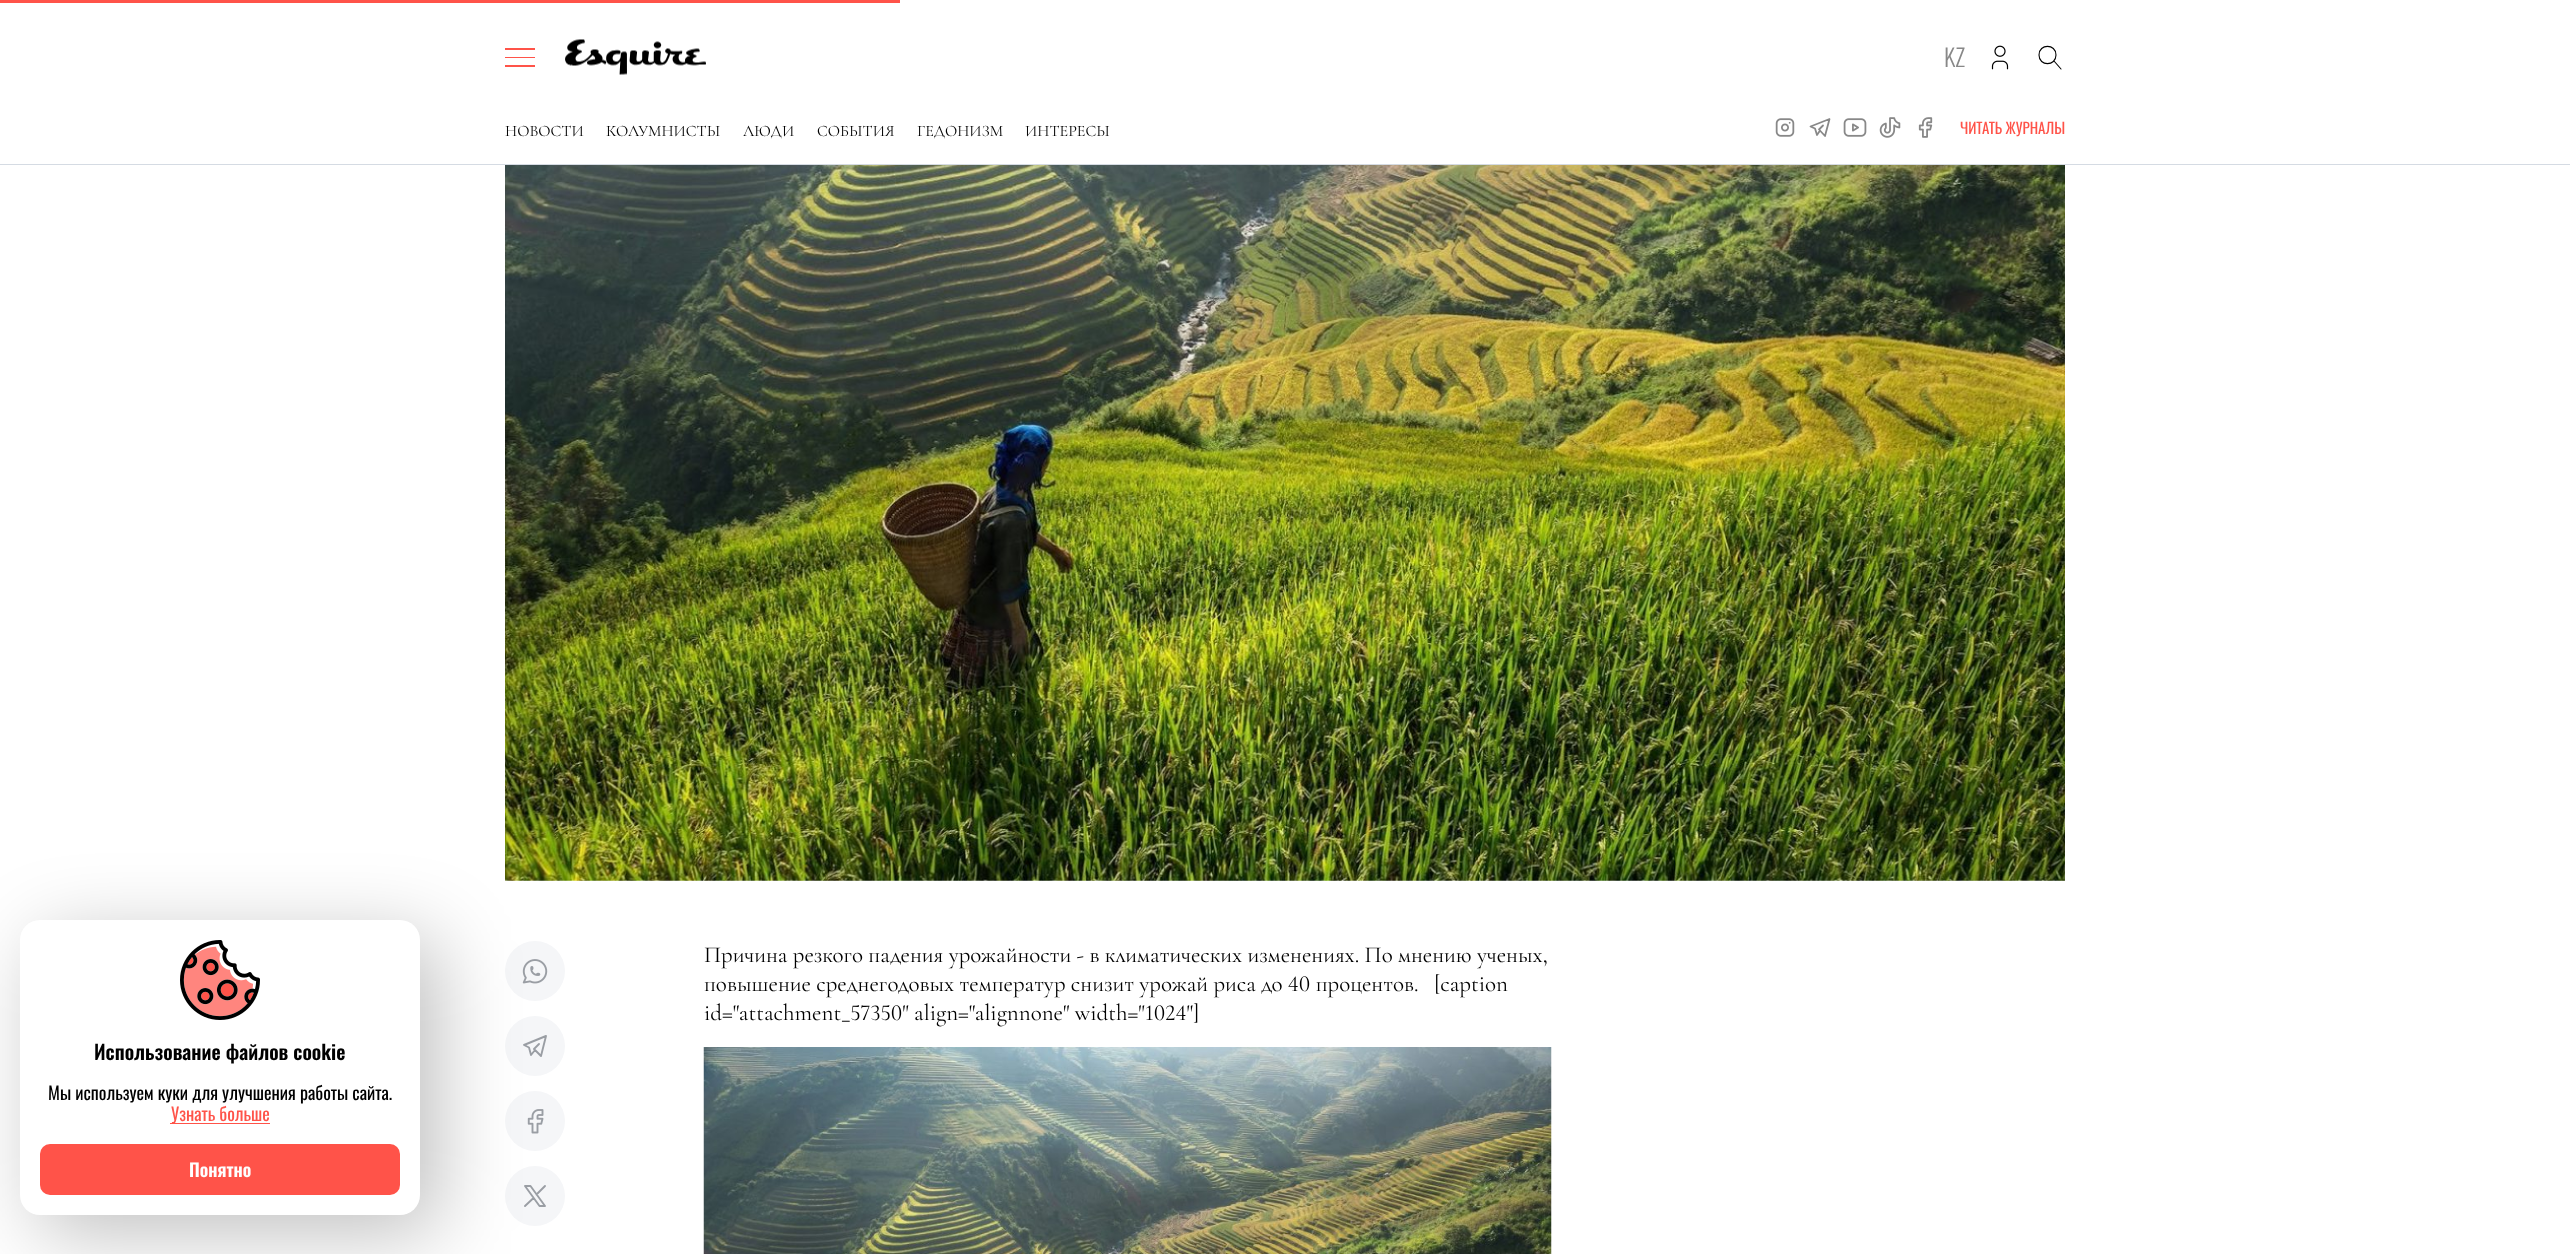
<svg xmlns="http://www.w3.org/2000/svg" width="2570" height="1254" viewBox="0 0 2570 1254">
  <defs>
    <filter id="blur1" x="-50%" y="-200%" width="200%" height="500%"><feGaussianBlur stdDeviation="40"/></filter>
  </defs>
  <rect width="100%" height="100%" fill="#ffffff"/>
  <rect x="0" y="0" width="900" height="3" fill="#ff5349"/>
  <rect x="0" y="164" width="2570" height="1" fill="#d5dbe3"/>
  <rect x="505" y="48" width="30" height="2" fill="#ff5349"/>
  <rect x="505" y="57" width="30" height="1" fill="#ff5349"/>
  <rect x="505" y="65" width="30" height="2" fill="#ff5349"/>
  <image x="565" y="39" width="141" height="36" href="img1.png"/>
  <text x="1944" y="67" font-family="Oswald" font-size="24" font-weight="300" fill="#888888">KZ</text>
  <image x="1991" y="45" width="18" height="25" href="img2.png"/>
  <path d="M2039 55C2039 66.5 2056 66.5 2056 55C2056 43.5 2039 43.5 2039 55ZM2061 69L2054 61" fill="none" stroke="#000000" stroke-width="1.1" stroke-linecap="round" stroke-linejoin="round"/>
  <text x="505" y="136" font-family="Cormorant Garamond" font-size="16" fill="#000000">НОВОСТИ</text>
  <text x="606" y="136" font-family="Cormorant Garamond" font-size="16" fill="#000000">КОЛУМНИСТЫ</text>
  <text x="743" y="136" font-family="Cormorant Garamond" font-size="16" fill="#000000">ЛЮДИ</text>
  <text x="817" y="136" font-family="Cormorant Garamond" font-size="16" fill="#000000">СОБЫТИЯ</text>
  <text x="917" y="136" font-family="Cormorant Garamond" font-size="16" fill="#000000">ГЕДОНИЗМ</text>
  <text x="1025" y="136" font-family="Cormorant Garamond" font-size="16" fill="#000000">ИНТЕРЕСЫ</text>
  <image x="1775" y="118" width="20" height="19" href="img3.png"/>
  <path d="M1823 125.5L1819 129.5L1825 136L1829.5 119L1810.5 126.5L1815 128.5L1817 135L1820 130.5" fill="none" stroke="#888888" stroke-width="1.8" stroke-linecap="round" stroke-linejoin="round"/>
  <image x="1843" y="118" width="24" height="19" href="img4.png"/>
  <image x="1879" y="117" width="22" height="21" href="img5.png"/>
  <image x="1918" y="117" width="15" height="21" href="img6.png"/>
  <text x="1960" y="134" font-family="Oswald" font-size="15" fill="#ff5349">ЧИТАТЬ ЖУРНАЛЫ</text>
  <image x="505" y="165" width="1560" height="716" href="img7.png"/>
  <circle cx="535" cy="971" r="30" fill="#f5f6f8"/>
  <image x="522" y="959" width="26" height="25" href="img8.png"/>
  <circle cx="535" cy="1046" r="30" fill="#f5f6f8"/>
  <path d="M539 1044L534 1049L541 1056L546 1036L524 1045L529 1047.5L531 1055L535 1050" fill="none" stroke="#9a9ea4" stroke-width="1.9" stroke-linecap="round" stroke-linejoin="round"/>
  <circle cx="535" cy="1121" r="30" fill="#f5f6f8"/>
  <image x="527" y="1109" width="17" height="25" href="img9.png"/>
  <circle cx="535" cy="1196" r="30" fill="#f5f6f8"/>
  <path d="M525 1186L539.5 1206H545L530.5 1186ZM525 1206L533.5 1198M536.5 1194.5L545 1186" fill="none" stroke="#9a9ea4" stroke-width="1.9" stroke-linecap="round" stroke-linejoin="round"/>
  <text x="704" y="962" font-family="Cormorant Garamond" font-size="23" fill="#000000">Причина резкого падения урожайности - в климатических изменениях. По мнению ученых,</text>
  <text x="704" y="991" font-family="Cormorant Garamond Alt" font-size="23" fill="#000000">повышение среднегодовых температур снизит урожай риса до 40 процентов.</text>
  <text x="1434" y="991" font-family="Cormorant Garamond" font-size="23" fill="#000000">[caption</text>
  <text x="704" y="1020" font-family="Cormorant Garamond Alt" font-size="23" fill="#000000">id="attachment_57350" align="alignnone" width="1024"]</text>
  <image x="703" y="1047" width="849" height="207" href="img10.png"/>
  <rect x="38" y="938" width="400" height="295" rx="20" fill="#000000" fill-opacity="0.25" filter="url(#blur1)"/>
  <rect x="20" y="920" width="400" height="295" rx="20" fill="#ffffff"/>
  <image x="180" y="940" width="80" height="80" href="img11.png"/>
  <text x="94" y="1060" font-family="Oswald" font-size="20" font-weight="600" fill="#000000">Использование файлов cookie</text>
  <text x="48" y="1100" font-family="Oswald" font-size="18" fill="#000000">Мы используем куки для улучшения работы сайта.</text>
  <rect x="170" y="1123" width="100" height="1" fill="#ff5349"/>
  <text x="171" y="1121" font-family="Oswald" font-size="18" fill="#ff5349">Узнать больше</text>
  <rect x="40" y="1144" width="360" height="51" rx="10" fill="#ff5349"/>
  <text x="189" y="1177" font-family="Oswald" font-size="18" font-weight="600" fill="#ffffff">Понятно</text>
</svg>
